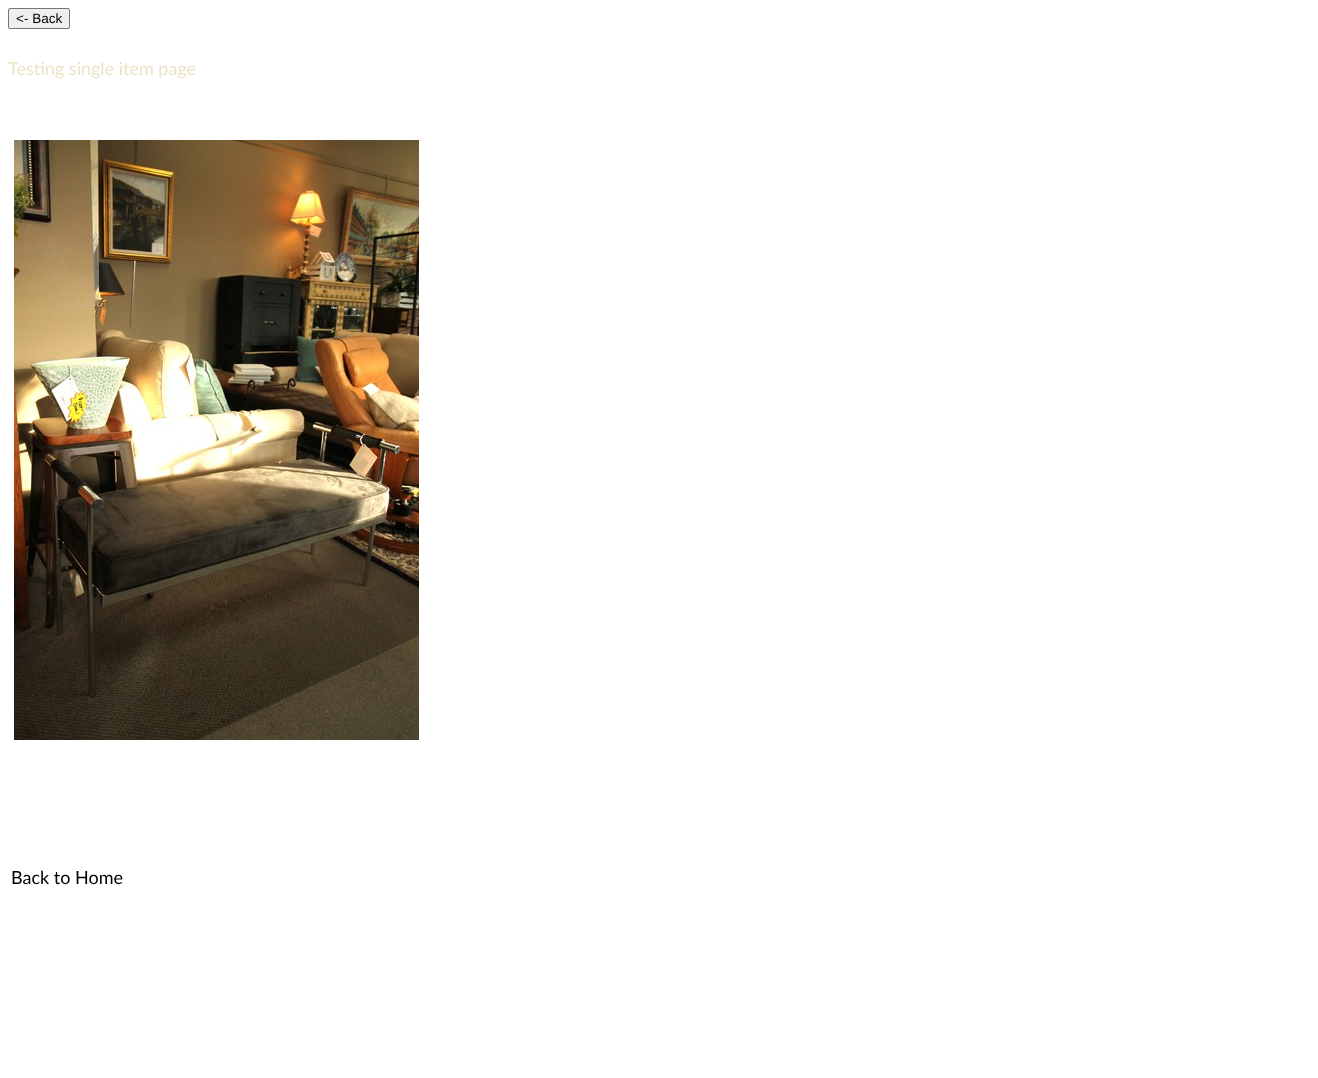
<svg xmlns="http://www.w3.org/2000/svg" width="1318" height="1078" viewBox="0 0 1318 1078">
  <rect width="100%" height="100%" fill="#ffffff"/>
  <rect x="8.5" y="8.5" width="61" height="20" rx="1.5" fill="#efefef" stroke="#767676"/>
  <text x="16" y="23" font-family="Liberation Sans" font-size="13.5" fill="#000000">&lt;- Back</text>
  <text x="8" y="75" font-family="Lato" font-size="18" fill="#eae4c7">Testing single item page</text>
  <image x="14" y="140" width="405" height="600" href="img1.png"/>
  <text x="11" y="884" font-family="Lato" font-size="18" fill="#000000">Back to Home</text>
</svg>
